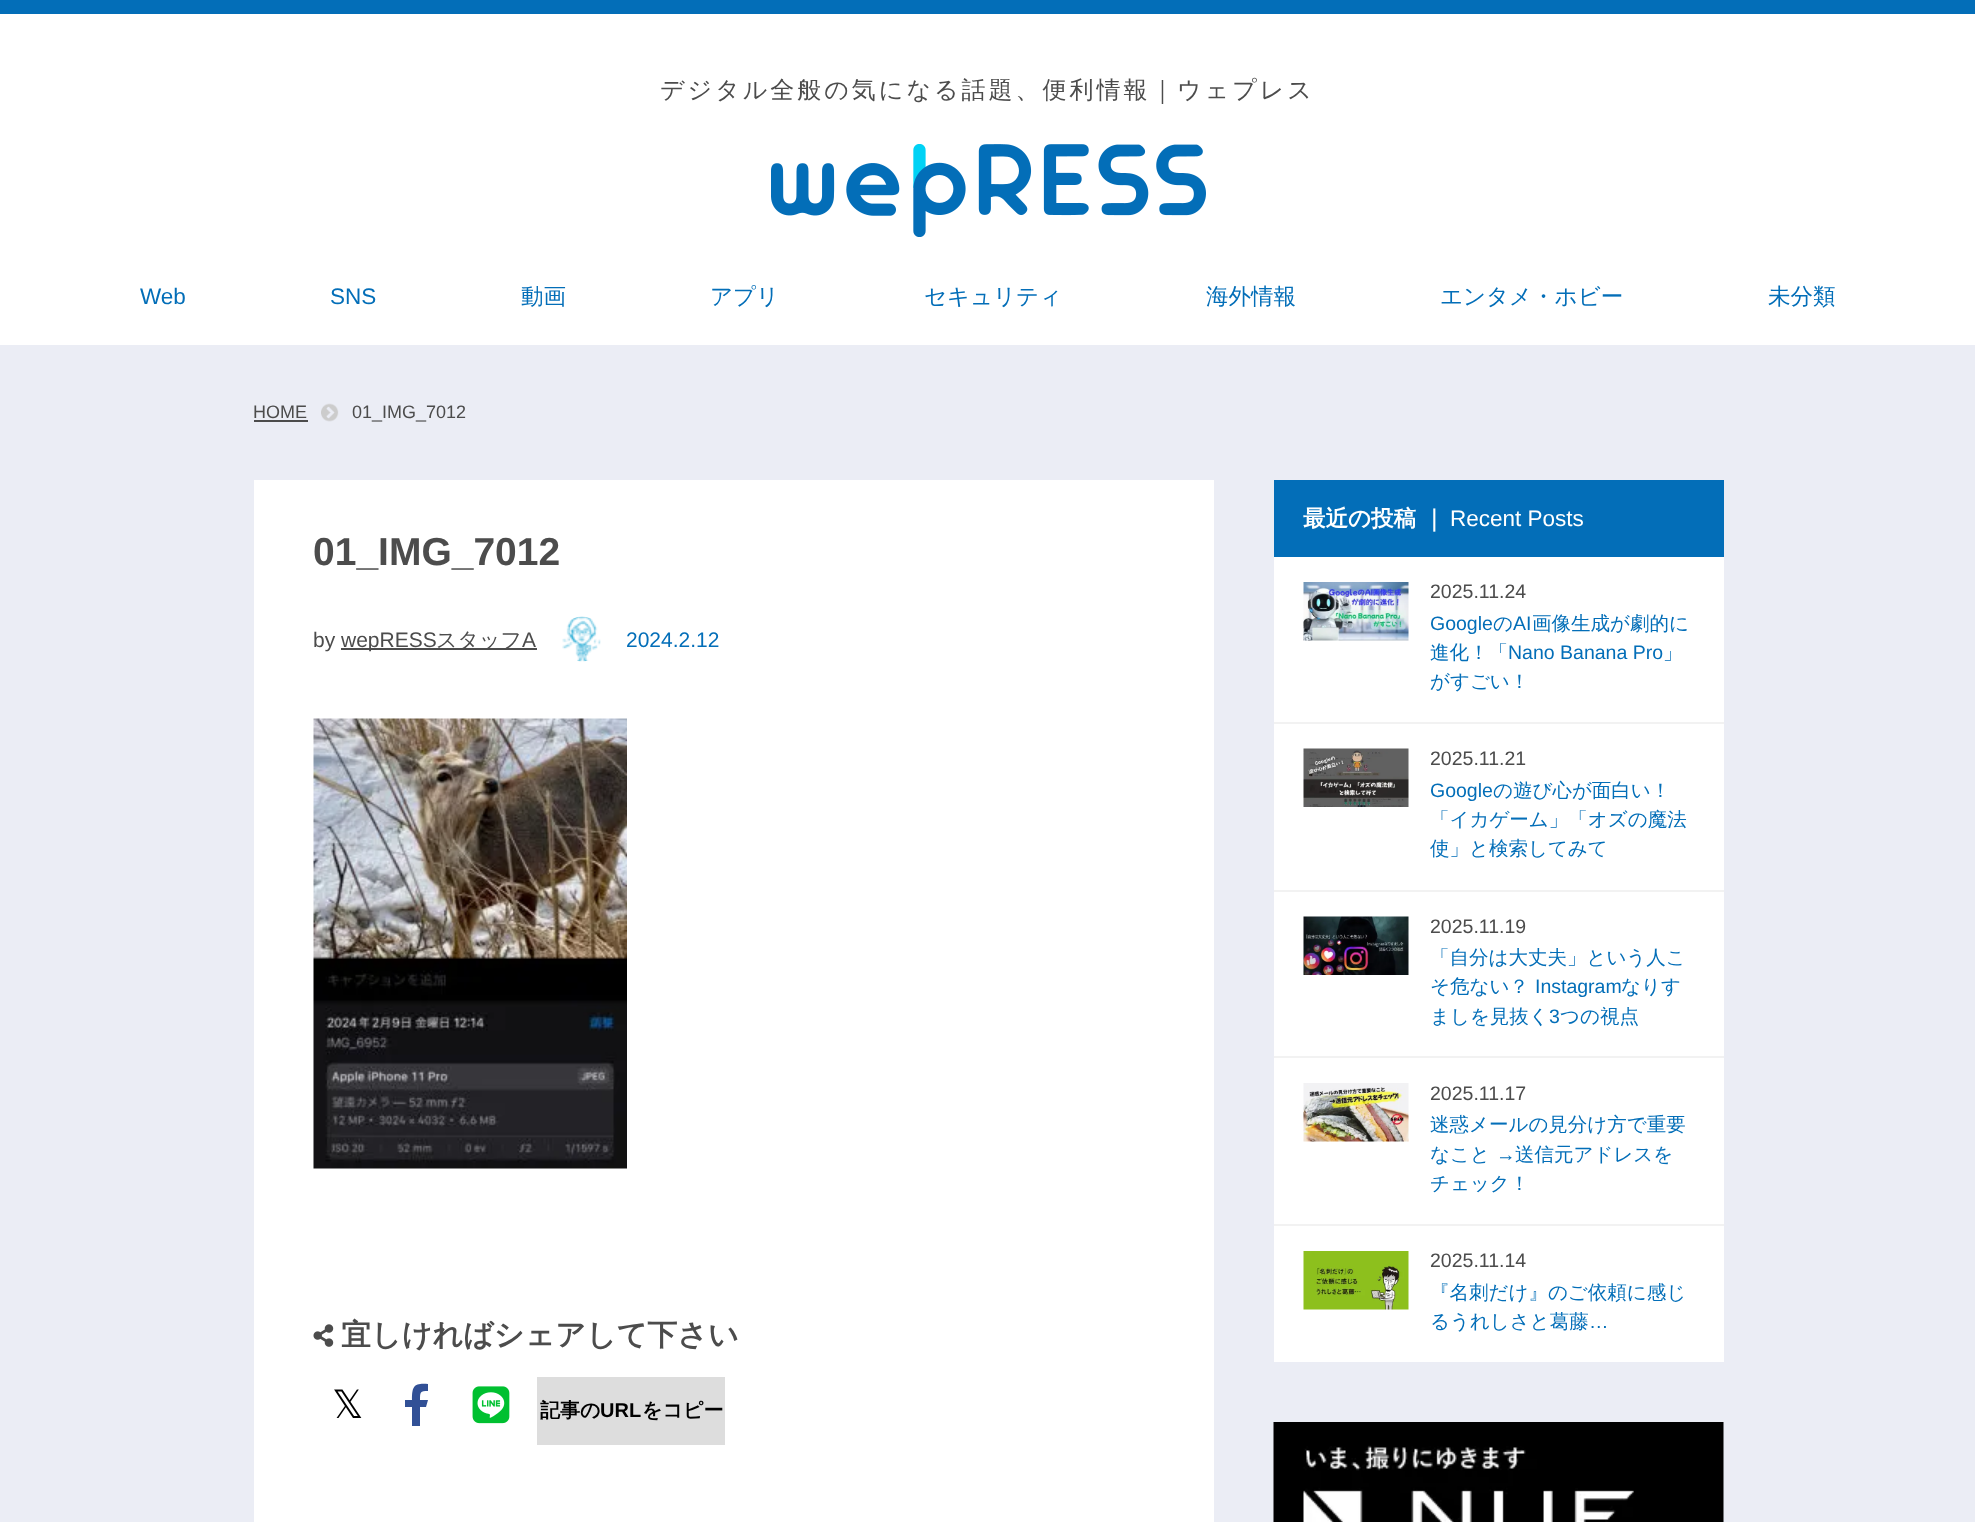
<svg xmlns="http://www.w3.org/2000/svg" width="1975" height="1522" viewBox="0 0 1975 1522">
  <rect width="100%" height="100%" fill="#ffffff"/>
  <rect x="0" y="0" width="1975" height="14" fill="#036eb8"/>
  <text x="660" y="98" font-family="WenQuanYi Zen Hei" font-size="24" font-weight="500" letter-spacing="3" fill="#4c4c4c">デジタル全般の気になる話題、便利情報｜ウェプレス</text>
  <image x="771" y="144" width="435" height="93" href="img1.png"/>
  <text x="140" y="304" font-family="Liberation Sans" font-size="22.5" fill="#036eb8">Web</text>
  <text x="330" y="304" font-family="Liberation Sans" font-size="22.5" fill="#036eb8">SNS</text>
  <text x="521" y="304" font-family="WenQuanYi Zen Hei" font-size="22.5" font-weight="500" fill="#036eb8">動画</text>
  <text x="710" y="304" font-family="WenQuanYi Zen Hei" font-size="22.5" font-weight="500" fill="#036eb8">アプリ</text>
  <text x="924" y="304" font-family="WenQuanYi Zen Hei" font-size="22.5" font-weight="500" fill="#036eb8">セキュリティ</text>
  <text x="1206" y="304" font-family="WenQuanYi Zen Hei" font-size="22.5" font-weight="500" fill="#036eb8">海外情報</text>
  <text x="1440" y="304" font-family="WenQuanYi Zen Hei" font-size="22.5" font-weight="500" fill="#036eb8">エンタメ・ホビー</text>
  <text x="1768" y="304" font-family="WenQuanYi Zen Hei" font-size="22.5" font-weight="500" fill="#036eb8">未分類</text>
  <rect x="0" y="345" width="1975" height="1177" fill="#ebedf5"/>
  <text x="253" y="418" font-family="Liberation Sans" font-size="18" fill="#4c4c4c">HOME</text>
  <rect x="254" y="420" width="54" height="2" fill="#4c4c4c"/>
  <image x="321" y="403" width="18" height="19" href="img2.png"/>
  <text x="352" y="418" font-family="Liberation Sans" font-size="18" fill="#4c4c4c">01_IMG_7012</text>
  <rect x="254" y="480" width="960" height="1042" fill="#ffffff"/>
  <text x="313" y="565" font-family="Liberation Sans" font-size="39" font-weight="bold" fill="#4c4c4c">01_IMG_7012</text>
  <text x="313" y="647" font-family="Liberation Sans" font-size="21" fill="#4c4c4c">by</text>
  <rect x="341" y="648" width="196" height="2" fill="#4c4c4c"/>
  <text x="341" y="647" font-family="Liberation Sans" font-size="21" fill="#4c4c4c">wepRESS</text>
  <text x="436" y="647" font-family="WenQuanYi Zen Hei" font-size="21" font-weight="500" fill="#4c4c4c">スタッフ</text>
  <text x="522" y="647" font-family="Liberation Sans" font-size="21" fill="#4c4c4c">A</text>
  <image x="562" y="616" width="39" height="46" href="img3.png"/>
  <text x="626" y="647" font-family="Liberation Sans" font-size="21" fill="#036eb8">2024.2.12</text>
  <image x="313" y="718" width="314" height="451" href="img4.png"/>
  <image x="313" y="1324" width="21" height="23" href="img5.png"/>
  <text x="341" y="1345" font-family="WenQuanYi Zen Hei" font-size="30" font-weight="bold" fill="#4c4c4c">宜しければシェアして下さい</text>
  <text x="332" y="1418" font-family="DejaVu Sans" font-size="39" fill="#000000">𝕏</text>
  <path d="M426 1407H420V1426H412V1407H405V1400H412C412 1386 414 1383 428 1384V1391C420 1391 420 1392 420 1400H428Z" fill="#315096"/>
  <image x="472" y="1386" width="38" height="38" href="img6.png"/>
  <rect x="537" y="1377" width="188" height="68" fill="#dddddd"/>
  <text x="540" y="1417" font-family="WenQuanYi Zen Hei" font-size="20" font-weight="bold" fill="#000000">記事の</text>
  <text x="600" y="1417" font-family="Liberation Sans" font-size="20" font-weight="bold" fill="#000000">URL</text>
  <text x="642" y="1417" font-family="WenQuanYi Zen Hei" font-size="20" font-weight="bold" fill="#000000">をコピー</text>
  <rect x="1274" y="480" width="450" height="77" fill="#036eb8"/>
  <text x="1303" y="526" font-family="WenQuanYi Zen Hei" font-size="22.5" font-weight="bold" fill="#ffffff">最近の投稿 ｜</text>
  <text x="1450" y="526" font-family="Liberation Sans" font-size="22.5" fill="#ffffff">Recent Posts</text>
  <rect x="1274" y="557" width="450" height="805" fill="#ffffff"/>
  <rect x="1274" y="722" width="450" height="2" fill="#f2f2f2"/>
  <image x="1303" y="582" width="106" height="59" href="img7.png"/>
  <text x="1430" y="598" font-family="Liberation Sans" font-size="19.5" fill="#4c4c4c">2025.11.24</text>
  <text x="1430" y="630" font-family="Liberation Sans" font-size="19.5" fill="#036eb8">Google</text>
  <text x="1493" y="630" font-family="WenQuanYi Zen Hei" font-size="19.5" font-weight="500" fill="#036eb8">の</text>
  <text x="1513" y="630" font-family="Liberation Sans" font-size="19.5" fill="#036eb8">AI</text>
  <text x="1532" y="630" font-family="WenQuanYi Zen Hei" font-size="19.5" font-weight="500" fill="#036eb8">画像生成が劇的に</text>
  <text x="1430" y="659" font-family="WenQuanYi Zen Hei" font-size="19.5" font-weight="500" fill="#036eb8">進化！「</text>
  <text x="1508" y="659" font-family="Liberation Sans" font-size="19.5" fill="#036eb8">Nano Banana Pro</text>
  <text x="1663" y="659" font-family="WenQuanYi Zen Hei" font-size="19.5" font-weight="500" fill="#036eb8">」</text>
  <text x="1430" y="688" font-family="WenQuanYi Zen Hei" font-size="19.5" font-weight="500" fill="#036eb8">がすごい！</text>
  <rect x="1274" y="890" width="450" height="2" fill="#f2f2f2"/>
  <image x="1303" y="748" width="106" height="59" href="img8.png"/>
  <text x="1430" y="765" font-family="Liberation Sans" font-size="19.5" fill="#4c4c4c">2025.11.21</text>
  <text x="1430" y="797" font-family="Liberation Sans" font-size="19.5" fill="#036eb8">Google</text>
  <text x="1493" y="797" font-family="WenQuanYi Zen Hei" font-size="19.5" font-weight="500" fill="#036eb8">の遊び心が面白い！</text>
  <text x="1430" y="826" font-family="WenQuanYi Zen Hei" font-size="19.5" font-weight="500" fill="#036eb8">「イカゲーム」「オズの魔法</text>
  <text x="1430" y="855" font-family="WenQuanYi Zen Hei" font-size="19.5" font-weight="500" fill="#036eb8">使」と検索してみて</text>
  <rect x="1274" y="1056" width="450" height="2" fill="#f2f2f2"/>
  <image x="1303" y="916" width="106" height="59" href="img9.png"/>
  <text x="1430" y="933" font-family="Liberation Sans" font-size="19.5" fill="#4c4c4c">2025.11.19</text>
  <text x="1430" y="964" font-family="WenQuanYi Zen Hei" font-size="19.5" font-weight="500" fill="#036eb8">「自分は大丈夫」という人こ</text>
  <text x="1430" y="993" font-family="WenQuanYi Zen Hei" font-size="19.5" font-weight="500" fill="#036eb8">そ危ない？</text>
  <text x="1535" y="993" font-family="Liberation Sans" font-size="19.5" fill="#036eb8">Instagram</text>
  <text x="1621" y="993" font-family="WenQuanYi Zen Hei" font-size="19.5" font-weight="500" fill="#036eb8">なりす</text>
  <text x="1430" y="1023" font-family="WenQuanYi Zen Hei" font-size="19.5" font-weight="500" fill="#036eb8">ましを見抜く</text>
  <text x="1549" y="1023" font-family="Liberation Sans" font-size="19.5" fill="#036eb8">3</text>
  <text x="1560" y="1023" font-family="WenQuanYi Zen Hei" font-size="19.5" font-weight="500" fill="#036eb8">つの視点</text>
  <rect x="1274" y="1224" width="450" height="2" fill="#f2f2f2"/>
  <image x="1303" y="1083" width="106" height="59" href="img10.png"/>
  <text x="1430" y="1100" font-family="Liberation Sans" font-size="19.5" fill="#4c4c4c">2025.11.17</text>
  <text x="1430" y="1131" font-family="WenQuanYi Zen Hei" font-size="19.5" font-weight="500" fill="#036eb8">迷惑メールの見分け方で重要</text>
  <text x="1430" y="1161" font-family="WenQuanYi Zen Hei" font-size="19.5" font-weight="500" fill="#036eb8">なこと</text>
  <text x="1496" y="1161" font-family="Liberation Sans" font-size="19.5" fill="#036eb8">→</text>
  <text x="1515" y="1161" font-family="WenQuanYi Zen Hei" font-size="19.5" font-weight="500" fill="#036eb8">送信元アドレスを</text>
  <text x="1430" y="1190" font-family="WenQuanYi Zen Hei" font-size="19.5" font-weight="500" fill="#036eb8">チェック！</text>
  <image x="1303" y="1251" width="106" height="59" href="img11.png"/>
  <text x="1430" y="1267" font-family="Liberation Sans" font-size="19.5" fill="#4c4c4c">2025.11.14</text>
  <text x="1430" y="1299" font-family="WenQuanYi Zen Hei" font-size="19.5" font-weight="500" fill="#036eb8">『名刺だけ』のご依頼に感じ</text>
  <text x="1430" y="1328" font-family="WenQuanYi Zen Hei" font-size="19.5" font-weight="500" fill="#036eb8">るうれしさと葛藤</text>
  <text x="1589" y="1328" font-family="Liberation Sans" font-size="19.5" fill="#036eb8">…</text>
  <image x="1273" y="1422" width="451" height="100" href="img12.png"/>
</svg>
